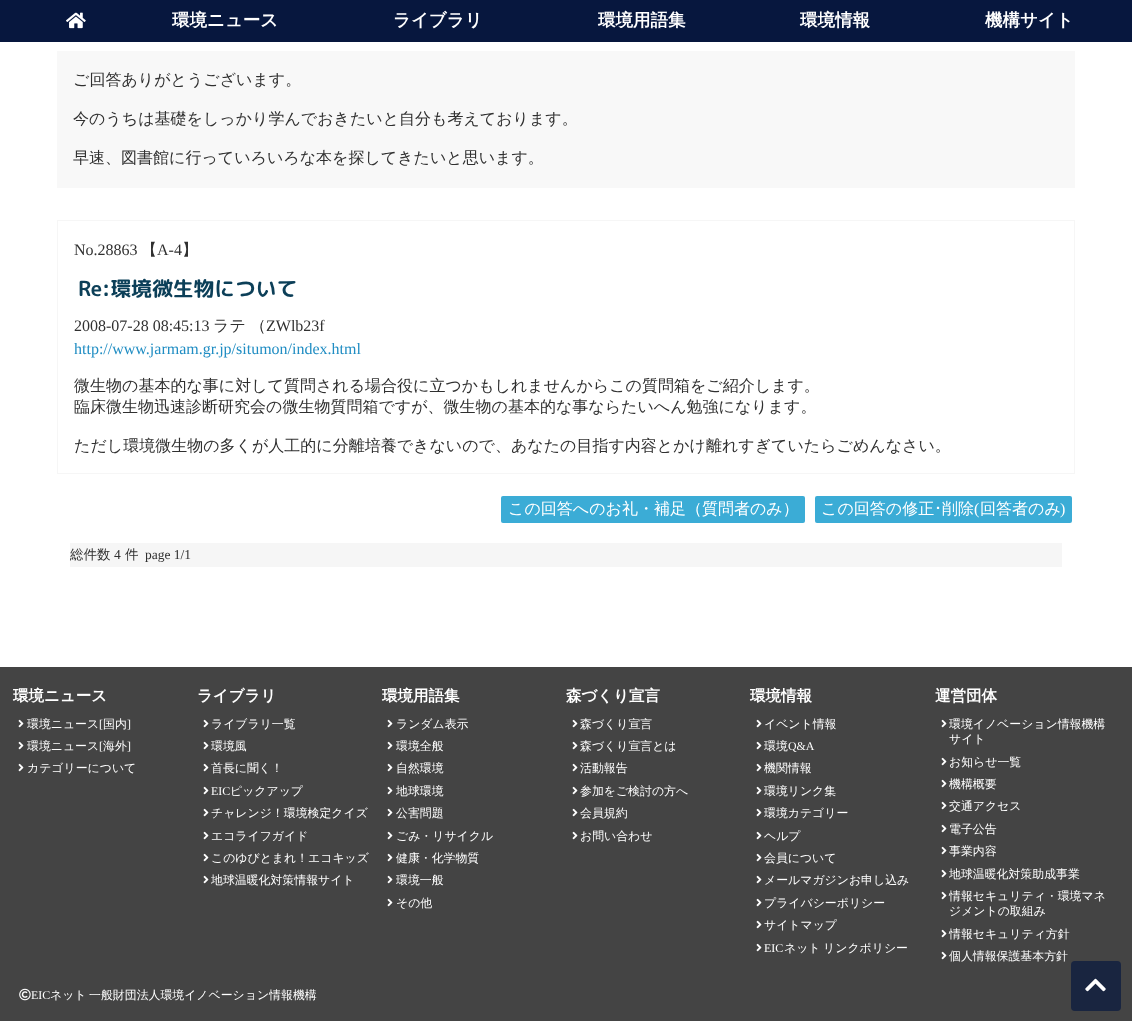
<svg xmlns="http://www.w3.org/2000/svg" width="1132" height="1021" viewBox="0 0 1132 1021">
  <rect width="100%" height="100%" fill="#ffffff"/>
  <rect x="0" y="0" width="1132" height="42" fill="#07173e"/>
  <image x="66" y="12" width="20" height="17" href="img1.png"/>
  <text x="172" y="26" font-family="WenQuanYi Zen Hei" font-size="17.5" font-weight="bold" fill="#ffffff">環境ニュース</text>
  <text x="393" y="26" font-family="WenQuanYi Zen Hei" font-size="17.5" font-weight="bold" fill="#ffffff">ライブラリ</text>
  <text x="598" y="26" font-family="WenQuanYi Zen Hei" font-size="17.5" font-weight="bold" fill="#ffffff">環境用語集</text>
  <text x="800" y="26" font-family="WenQuanYi Zen Hei" font-size="17.5" font-weight="bold" fill="#ffffff">環境情報</text>
  <text x="985" y="26" font-family="WenQuanYi Zen Hei" font-size="17.5" font-weight="bold" fill="#ffffff">機構サイト</text>
  <rect x="57" y="51" width="1018" height="137" fill="#f8f8f8"/>
  <text x="73" y="85" font-family="WenQuanYi Zen Hei" font-size="16" font-weight="500" fill="#303030">ご回答ありがとうございます。</text>
  <text x="73" y="124" font-family="WenQuanYi Zen Hei" font-size="16" font-weight="500" fill="#303030">今のうちは基礎をしっかり学んでおきたいと自分も考えております。</text>
  <text x="73" y="163" font-family="WenQuanYi Zen Hei" font-size="16" font-weight="500" fill="#303030">早速、図書館に行っていろいろな本を探してきたいと思います。</text>
  <rect x="57.5" y="220.5" width="1017" height="253" fill="none" stroke="#f6f6f6"/>
  <text x="74" y="255" font-family="Liberation Serif" font-size="16" fill="#303030">No.28863</text>
  <text x="141" y="255" font-family="WenQuanYi Zen Hei" font-size="16" font-weight="500" fill="#303030">【</text>
  <text x="157" y="255" font-family="Liberation Serif" font-size="16" fill="#303030">A-4</text>
  <text x="182" y="255" font-family="WenQuanYi Zen Hei" font-size="16" font-weight="500" fill="#303030">】</text>
  <text x="78" y="296" font-family="'Rounded Mplus 1c Bold'" font-size="20.75" font-weight="bold" fill="#0c3f58">Re:環境微生物について</text>
  <text x="74" y="331" font-family="Liberation Serif" font-size="16" fill="#303030">2008-07-28 08:45:13</text>
  <text x="213" y="331" font-family="WenQuanYi Zen Hei" font-size="16" font-weight="500" fill="#303030">ラテ</text>
  <text x="250" y="331" font-family="WenQuanYi Zen Hei" font-size="16" font-weight="500" fill="#303030">（</text>
  <text x="266" y="331" font-family="Liberation Serif" font-size="16" fill="#303030">ZWlb23f</text>
  <text x="74" y="354" font-family="Liberation Serif" font-size="16" fill="#208dc3">http://www.jarmam.gr.jp/situmon/index.html</text>
  <text x="74" y="391" font-family="WenQuanYi Zen Hei" font-size="16" font-weight="500" fill="#303030">微生物の基本的な事に対して質問される場合役に立つかもしれませんからこの質問箱をご紹介します。</text>
  <text x="74" y="412" font-family="WenQuanYi Zen Hei" font-size="16" font-weight="500" fill="#303030">臨床微生物迅速診断研究会の微生物質問箱ですが、微生物の基本的な事ならたいへん勉強になります。</text>
  <text x="74" y="451" font-family="WenQuanYi Zen Hei" font-size="16" font-weight="500" fill="#303030">ただし環境微生物の多くが人工的に分離培養できないので、あなたの目指す内容とかけ離れすぎていたらごめんなさい。</text>
  <rect x="501" y="496" width="304" height="27" rx="2" fill="#3bacd6"/>
  <text x="508" y="514" font-family="WenQuanYi Zen Hei" font-size="16" font-weight="500" fill="#ffffff">この回答へのお礼・補足（質問者のみ）</text>
  <rect x="815" y="496" width="257" height="27" rx="2" fill="#3bacd6"/>
  <text x="821" y="514" font-family="WenQuanYi Zen Hei" font-size="16" font-weight="500" fill="#ffffff">この回答の修正</text>
  <text x="934" y="514" font-family="IPAPGothic" font-size="16" fill="#ffffff">･</text>
  <text x="942" y="514" font-family="WenQuanYi Zen Hei" font-size="16" font-weight="500" fill="#ffffff">削除</text>
  <text x="974" y="514" font-family="Liberation Serif" font-size="16" fill="#ffffff">(</text>
  <text x="980" y="514" font-family="WenQuanYi Zen Hei" font-size="16" font-weight="500" fill="#ffffff">回答者のみ</text>
  <text x="1060" y="514" font-family="Liberation Serif" font-size="16" fill="#ffffff">)</text>
  <rect x="70" y="543" width="992" height="24" fill="#f6f6f6"/>
  <text x="70" y="559" font-family="WenQuanYi Zen Hei" font-size="13.5" font-weight="500" fill="#303030">総件数</text>
  <text x="114" y="559" font-family="Liberation Serif" font-size="13.5" fill="#303030">4</text>
  <text x="125" y="559" font-family="WenQuanYi Zen Hei" font-size="13.5" font-weight="500" fill="#303030">件</text>
  <text x="145" y="559" font-family="Liberation Serif" font-size="13.5" fill="#303030">page 1/1</text>
  <rect x="0" y="667" width="1132" height="354" fill="#444444"/>
  <text x="13" y="701" font-family="WenQuanYi Zen Hei" font-size="15.5" font-weight="bold" fill="#ffffff">環境ニュース</text>
  <image x="18" y="719" width="6" height="9" href="img2.png"/>
  <text x="27" y="728" font-family="WenQuanYi Zen Hei" font-size="11.9" font-weight="500" fill="#ffffff">環境ニュース</text>
  <text x="99" y="728" font-family="Liberation Serif" font-size="11.9" fill="#ffffff">[</text>
  <text x="103" y="728" font-family="WenQuanYi Zen Hei" font-size="11.9" font-weight="500" fill="#ffffff">国内</text>
  <text x="127" y="728" font-family="Liberation Serif" font-size="11.9" fill="#ffffff">]</text>
  <image x="18" y="741" width="6" height="9" href="img2.png"/>
  <text x="27" y="750" font-family="WenQuanYi Zen Hei" font-size="11.9" font-weight="500" fill="#ffffff">環境ニュース</text>
  <text x="99" y="750" font-family="Liberation Serif" font-size="11.9" fill="#ffffff">[</text>
  <text x="103" y="750" font-family="WenQuanYi Zen Hei" font-size="11.9" font-weight="500" fill="#ffffff">海外</text>
  <text x="127" y="750" font-family="Liberation Serif" font-size="11.9" fill="#ffffff">]</text>
  <image x="18" y="763" width="6" height="9" href="img2.png"/>
  <text x="27" y="772" font-family="WenQuanYi Zen Hei" font-size="11.9" font-weight="500" fill="#ffffff">カテゴリーについて</text>
  <text x="197" y="701" font-family="WenQuanYi Zen Hei" font-size="15.5" font-weight="bold" fill="#ffffff">ライブラリ</text>
  <image x="203" y="719" width="6" height="9" href="img2.png"/>
  <text x="211" y="728" font-family="WenQuanYi Zen Hei" font-size="11.9" font-weight="500" fill="#ffffff">ライブラリ一覧</text>
  <image x="203" y="741" width="6" height="9" href="img2.png"/>
  <text x="211" y="750" font-family="WenQuanYi Zen Hei" font-size="11.9" font-weight="500" fill="#ffffff">環境風</text>
  <image x="203" y="763" width="6" height="9" href="img2.png"/>
  <text x="211" y="772" font-family="WenQuanYi Zen Hei" font-size="11.9" font-weight="500" fill="#ffffff">首長に聞く！</text>
  <image x="203" y="786" width="6" height="9" href="img2.png"/>
  <text x="211" y="795" font-family="Liberation Serif" font-size="11.9" fill="#ffffff">EIC</text>
  <text x="230" y="795" font-family="WenQuanYi Zen Hei" font-size="11.9" font-weight="500" fill="#ffffff">ピックアップ</text>
  <image x="203" y="808" width="6" height="9" href="img2.png"/>
  <text x="211" y="817" font-family="WenQuanYi Zen Hei" font-size="11.9" font-weight="500" fill="#ffffff">チャレンジ！環境検定クイズ</text>
  <image x="203" y="831" width="6" height="9" href="img2.png"/>
  <text x="211" y="840" font-family="WenQuanYi Zen Hei" font-size="11.9" font-weight="500" fill="#ffffff">エコライフガイド</text>
  <image x="203" y="853" width="6" height="9" href="img2.png"/>
  <text x="211" y="862" font-family="WenQuanYi Zen Hei" font-size="11.9" font-weight="500" fill="#ffffff">このゆびとまれ！エコキッズ</text>
  <image x="203" y="875" width="6" height="9" href="img2.png"/>
  <text x="211" y="884" font-family="WenQuanYi Zen Hei" font-size="11.9" font-weight="500" fill="#ffffff">地球温暖化対策情報サイト</text>
  <text x="382" y="701" font-family="WenQuanYi Zen Hei" font-size="15.5" font-weight="bold" fill="#ffffff">環境用語集</text>
  <image x="387" y="719" width="6" height="9" href="img2.png"/>
  <text x="396" y="728" font-family="WenQuanYi Zen Hei" font-size="11.9" font-weight="500" fill="#ffffff">ランダム表示</text>
  <image x="387" y="741" width="6" height="9" href="img2.png"/>
  <text x="396" y="750" font-family="WenQuanYi Zen Hei" font-size="11.9" font-weight="500" fill="#ffffff">環境全般</text>
  <image x="387" y="763" width="6" height="9" href="img2.png"/>
  <text x="396" y="772" font-family="WenQuanYi Zen Hei" font-size="11.9" font-weight="500" fill="#ffffff">自然環境</text>
  <image x="387" y="786" width="6" height="9" href="img2.png"/>
  <text x="396" y="795" font-family="WenQuanYi Zen Hei" font-size="11.9" font-weight="500" fill="#ffffff">地球環境</text>
  <image x="387" y="808" width="6" height="9" href="img2.png"/>
  <text x="396" y="817" font-family="WenQuanYi Zen Hei" font-size="11.9" font-weight="500" fill="#ffffff">公害問題</text>
  <image x="387" y="831" width="6" height="9" href="img2.png"/>
  <text x="396" y="840" font-family="WenQuanYi Zen Hei" font-size="11.9" font-weight="500" fill="#ffffff">ごみ・リサイクル</text>
  <image x="387" y="853" width="6" height="9" href="img2.png"/>
  <text x="396" y="862" font-family="WenQuanYi Zen Hei" font-size="11.9" font-weight="500" fill="#ffffff">健康・化学物質</text>
  <image x="387" y="875" width="6" height="9" href="img2.png"/>
  <text x="396" y="884" font-family="WenQuanYi Zen Hei" font-size="11.9" font-weight="500" fill="#ffffff">環境一般</text>
  <image x="387" y="898" width="6" height="9" href="img2.png"/>
  <text x="396" y="907" font-family="WenQuanYi Zen Hei" font-size="11.9" font-weight="500" fill="#ffffff">その他</text>
  <text x="566" y="701" font-family="WenQuanYi Zen Hei" font-size="15.5" font-weight="bold" fill="#ffffff">森づくり宣言</text>
  <image x="572" y="719" width="6" height="9" href="img2.png"/>
  <text x="580" y="728" font-family="WenQuanYi Zen Hei" font-size="11.9" font-weight="500" fill="#ffffff">森づくり宣言</text>
  <image x="572" y="741" width="6" height="9" href="img2.png"/>
  <text x="580" y="750" font-family="WenQuanYi Zen Hei" font-size="11.9" font-weight="500" fill="#ffffff">森づくり宣言とは</text>
  <image x="572" y="763" width="6" height="9" href="img2.png"/>
  <text x="580" y="772" font-family="WenQuanYi Zen Hei" font-size="11.9" font-weight="500" fill="#ffffff">活動報告</text>
  <image x="572" y="786" width="6" height="9" href="img2.png"/>
  <text x="580" y="795" font-family="WenQuanYi Zen Hei" font-size="11.9" font-weight="500" fill="#ffffff">参加をご検討の方へ</text>
  <image x="572" y="808" width="6" height="9" href="img2.png"/>
  <text x="580" y="817" font-family="WenQuanYi Zen Hei" font-size="11.9" font-weight="500" fill="#ffffff">会員規約</text>
  <image x="572" y="831" width="6" height="9" href="img2.png"/>
  <text x="580" y="840" font-family="WenQuanYi Zen Hei" font-size="11.9" font-weight="500" fill="#ffffff">お問い合わせ</text>
  <text x="750" y="701" font-family="WenQuanYi Zen Hei" font-size="15.5" font-weight="bold" fill="#ffffff">環境情報</text>
  <image x="756" y="719" width="6" height="9" href="img2.png"/>
  <text x="764" y="728" font-family="WenQuanYi Zen Hei" font-size="11.9" font-weight="500" fill="#ffffff">イベント情報</text>
  <image x="756" y="741" width="6" height="9" href="img2.png"/>
  <text x="764" y="750" font-family="WenQuanYi Zen Hei" font-size="11.9" font-weight="500" fill="#ffffff">環境</text>
  <text x="788" y="750" font-family="Liberation Serif" font-size="11.9" fill="#ffffff">Q&amp;A</text>
  <image x="756" y="763" width="6" height="9" href="img2.png"/>
  <text x="764" y="772" font-family="WenQuanYi Zen Hei" font-size="11.9" font-weight="500" fill="#ffffff">機関情報</text>
  <image x="756" y="786" width="6" height="9" href="img2.png"/>
  <text x="764" y="795" font-family="WenQuanYi Zen Hei" font-size="11.9" font-weight="500" fill="#ffffff">環境リンク集</text>
  <image x="756" y="808" width="6" height="9" href="img2.png"/>
  <text x="764" y="817" font-family="WenQuanYi Zen Hei" font-size="11.9" font-weight="500" fill="#ffffff">環境カテゴリー</text>
  <image x="756" y="831" width="6" height="9" href="img2.png"/>
  <text x="764" y="840" font-family="WenQuanYi Zen Hei" font-size="11.9" font-weight="500" fill="#ffffff">ヘルプ</text>
  <image x="756" y="853" width="6" height="9" href="img2.png"/>
  <text x="764" y="862" font-family="WenQuanYi Zen Hei" font-size="11.9" font-weight="500" fill="#ffffff">会員について</text>
  <image x="756" y="875" width="6" height="9" href="img2.png"/>
  <text x="764" y="884" font-family="WenQuanYi Zen Hei" font-size="11.9" font-weight="500" fill="#ffffff">メールマガジンお申し込み</text>
  <image x="756" y="898" width="6" height="9" href="img2.png"/>
  <text x="764" y="907" font-family="WenQuanYi Zen Hei" font-size="11.9" font-weight="500" fill="#ffffff">プライバシーポリシー</text>
  <image x="756" y="920" width="6" height="9" href="img2.png"/>
  <text x="764" y="929" font-family="WenQuanYi Zen Hei" font-size="11.9" font-weight="500" fill="#ffffff">サイトマップ</text>
  <image x="756" y="943" width="6" height="9" href="img2.png"/>
  <text x="764" y="952" font-family="Liberation Serif" font-size="11.9" fill="#ffffff">EIC</text>
  <text x="784" y="952" word-spacing="-1" font-family="WenQuanYi Zen Hei" font-size="11.9" font-weight="500" fill="#ffffff">ネット リンクポリシー</text>
  <text x="935" y="701" font-family="WenQuanYi Zen Hei" font-size="15.5" font-weight="bold" fill="#ffffff">運営団体</text>
  <image x="941" y="719" width="6" height="9" href="img2.png"/>
  <text x="949" y="728" font-family="WenQuanYi Zen Hei" font-size="11.9" font-weight="500" fill="#ffffff">環境イノベーション情報機構</text>
  <text x="949" y="743" font-family="WenQuanYi Zen Hei" font-size="11.9" font-weight="500" fill="#ffffff">サイト</text>
  <image x="941" y="757" width="6" height="9" href="img2.png"/>
  <text x="949" y="766" font-family="WenQuanYi Zen Hei" font-size="11.9" font-weight="500" fill="#ffffff">お知らせ一覧</text>
  <image x="941" y="779" width="6" height="9" href="img2.png"/>
  <text x="949" y="788" font-family="WenQuanYi Zen Hei" font-size="11.9" font-weight="500" fill="#ffffff">機構概要</text>
  <image x="941" y="801" width="6" height="9" href="img2.png"/>
  <text x="949" y="810" font-family="WenQuanYi Zen Hei" font-size="11.9" font-weight="500" fill="#ffffff">交通アクセス</text>
  <image x="941" y="824" width="6" height="9" href="img2.png"/>
  <text x="949" y="833" font-family="WenQuanYi Zen Hei" font-size="11.9" font-weight="500" fill="#ffffff">電子公告</text>
  <image x="941" y="846" width="6" height="9" href="img2.png"/>
  <text x="949" y="855" font-family="WenQuanYi Zen Hei" font-size="11.9" font-weight="500" fill="#ffffff">事業内容</text>
  <image x="941" y="869" width="6" height="9" href="img2.png"/>
  <text x="949" y="878" font-family="WenQuanYi Zen Hei" font-size="11.9" font-weight="500" fill="#ffffff">地球温暖化対策助成事業</text>
  <image x="941" y="891" width="6" height="9" href="img2.png"/>
  <text x="949" y="900" font-family="WenQuanYi Zen Hei" font-size="11.9" font-weight="500" fill="#ffffff">情報セキュリティ・環境マネ</text>
  <text x="949" y="915" font-family="WenQuanYi Zen Hei" font-size="11.9" font-weight="500" fill="#ffffff">ジメントの取組み</text>
  <image x="941" y="929" width="6" height="9" href="img2.png"/>
  <text x="949" y="938" font-family="WenQuanYi Zen Hei" font-size="11.9" font-weight="500" fill="#ffffff">情報セキュリティ方針</text>
  <image x="941" y="951" width="6" height="9" href="img2.png"/>
  <text x="949" y="960" font-family="WenQuanYi Zen Hei" font-size="11.9" font-weight="500" fill="#ffffff">個人情報保護基本方針</text>
  <image x="19" y="988" width="12" height="13" href="img3.png"/>
  <text x="31" y="999" font-family="Liberation Serif" font-size="11.9" fill="#ffffff">EIC</text>
  <text x="50" y="999" word-spacing="-1" font-family="WenQuanYi Zen Hei" font-size="11.9" font-weight="500" fill="#ffffff">ネット 一般財団法人環境イノベーション情報機構</text>
  <rect x="1071" y="961" width="50" height="50" rx="4" fill="#192540"/>
  <image x="1085" y="978" width="21" height="14" href="img4.png"/>
</svg>
